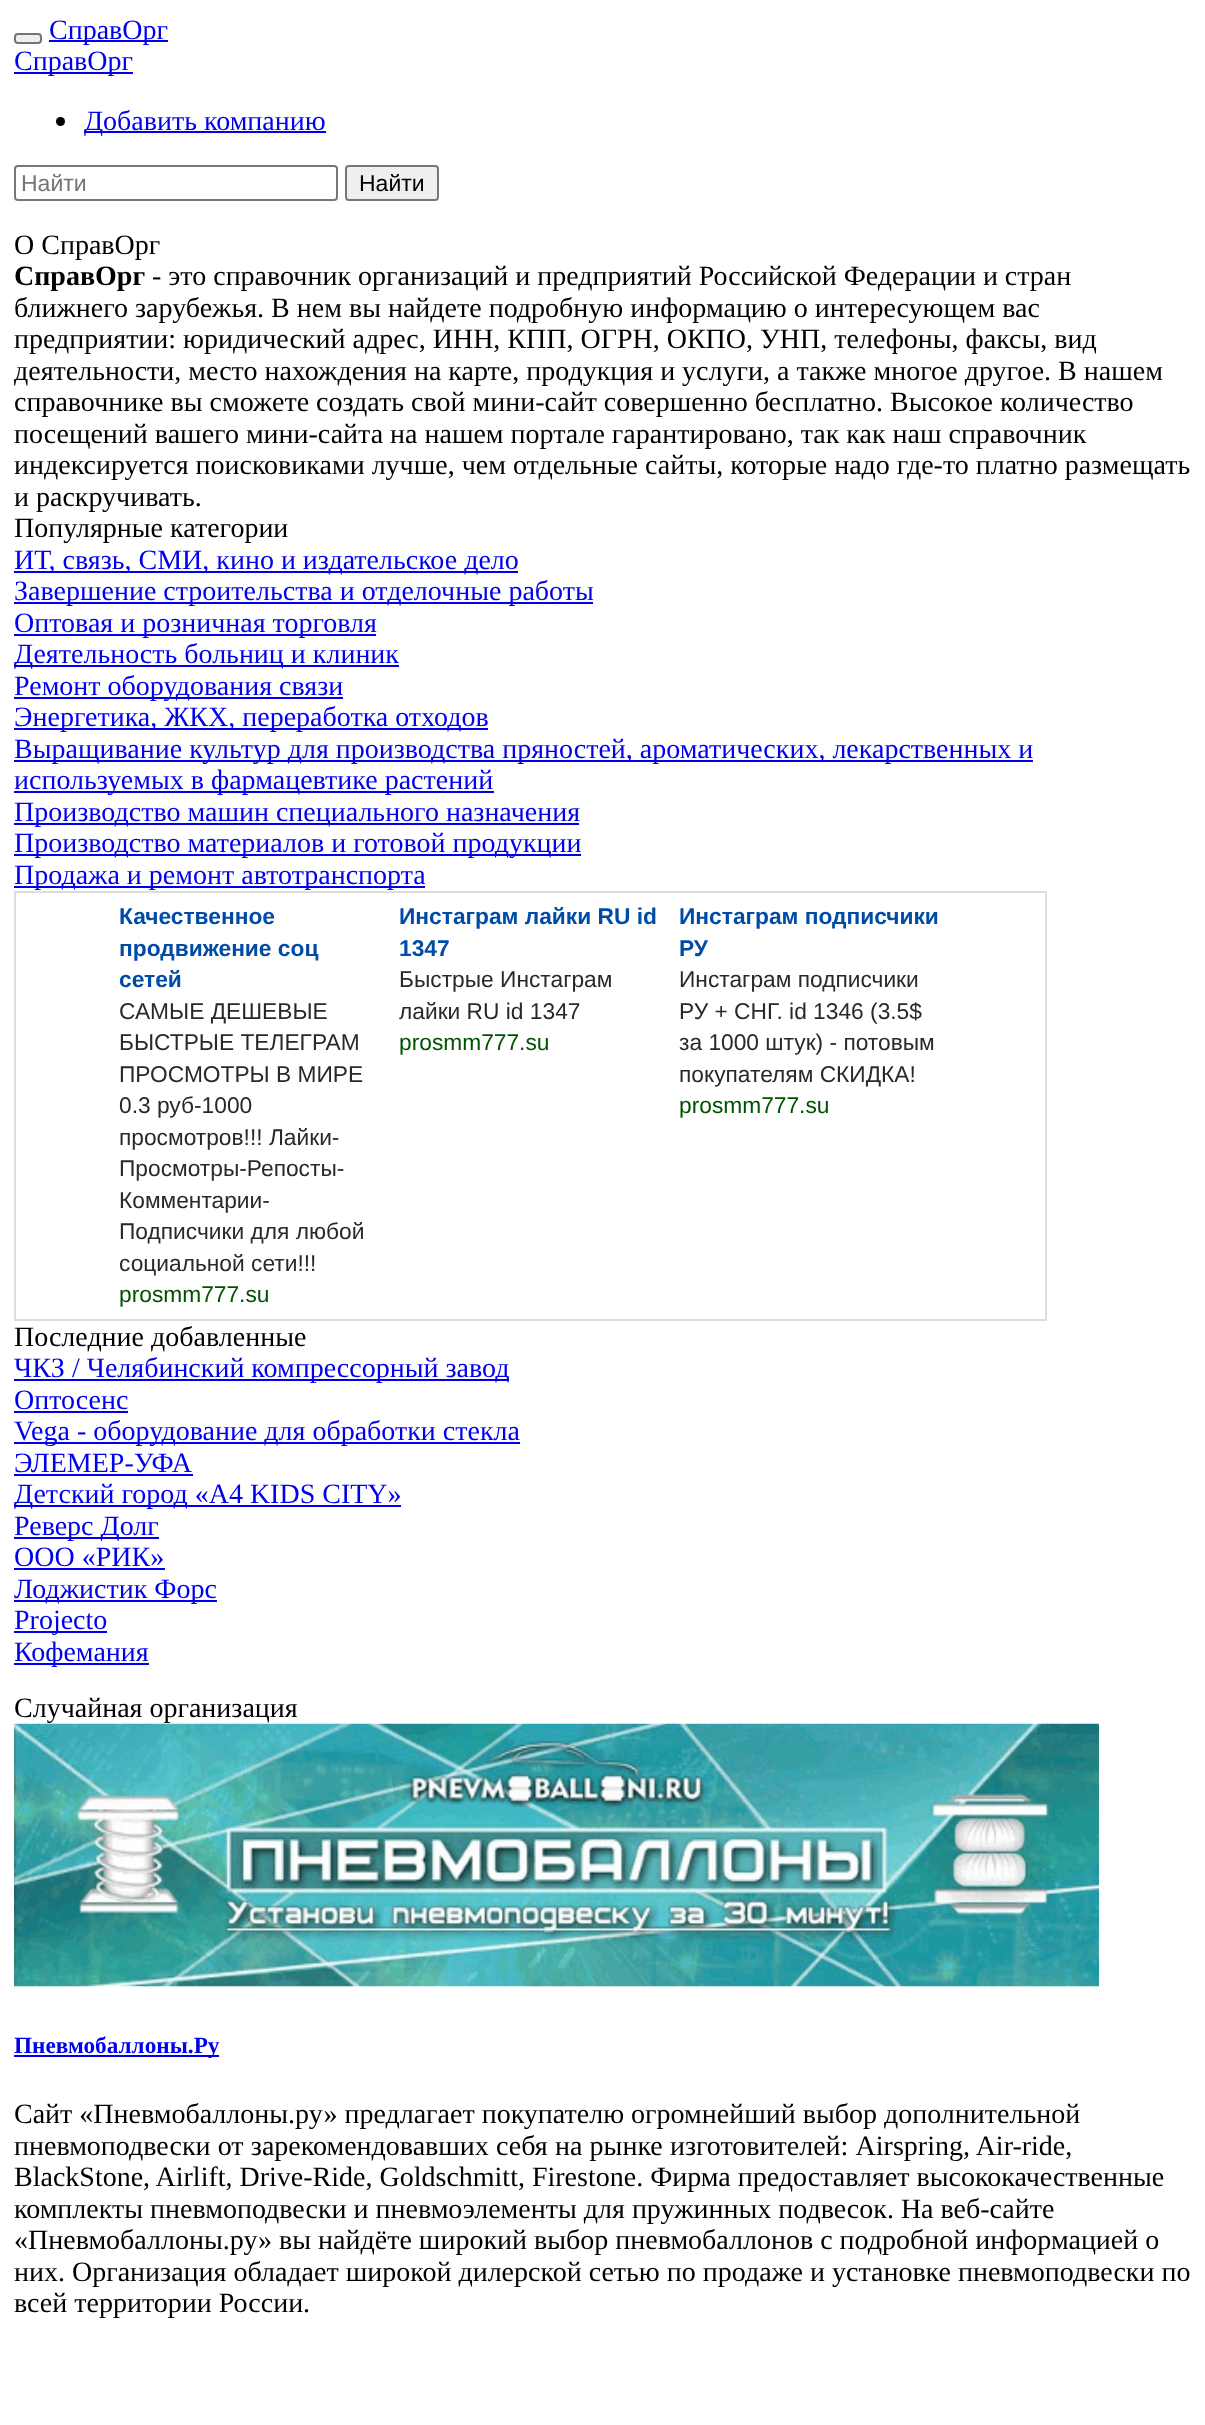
<svg xmlns="http://www.w3.org/2000/svg" width="1205" height="2425" viewBox="0 0 1205 2425">
  <rect width="100%" height="100%" fill="#ffffff"/>
  <rect x="15" y="34" width="26" height="9" rx="3" fill="#efefef" stroke="#767676" stroke-width="2"/>
  <rect x="49" y="40" width="119" height="2" fill="#0000ee"/>
  <text x="49" y="39" font-family="Liberation Serif" font-size="28" fill="#0000ee">СправОрг</text>
  <rect x="14" y="72" width="119" height="2" fill="#0000ee"/>
  <text x="14" y="70" font-family="Liberation Serif" font-size="28" fill="#0000ee">СправОрг</text>
  <circle cx="60.5" cy="121.5" r="4.5" fill="#000000"/>
  <rect x="84" y="131" width="242" height="2" fill="#0000ee"/>
  <text x="84" y="130" font-family="Liberation Serif" font-size="28" fill="#0000ee">Добавить компанию</text>
  <rect x="15" y="166" width="322" height="34" rx="3" fill="none" stroke="#767676" stroke-width="2"/>
  <text x="21" y="191" font-family="Liberation Sans" font-size="23" fill="#757575">Найти</text>
  <rect x="346" y="166" width="92" height="34" rx="3" fill="#efefef" stroke="#767676" stroke-width="2"/>
  <text x="359" y="191" font-family="Liberation Sans" font-size="23" fill="#000000">Найти</text>
  <text x="14" y="254" font-family="Liberation Serif" font-size="28" fill="#000000">О СправОрг</text>
  <text x="14" y="285" font-family="Liberation Serif" font-size="28" font-weight="bold" fill="#000000">СправОрг</text>
  <text x="152" y="285" font-family="Liberation Serif" font-size="28" fill="#000000">- это справочник организаций и предприятий Российской Федерации и стран</text>
  <text x="14" y="317" font-family="Liberation Serif" font-size="28" fill="#000000">ближнего зарубежья. В нем вы найдете подробную информацию о интересующем вас</text>
  <text x="14" y="348" font-family="Liberation Serif" font-size="28" fill="#000000">предприятии: юридический адрес, ИНН, КПП, ОГРН, ОКПО, УНП, телефоны, факсы, вид</text>
  <text x="14" y="380" font-family="Liberation Serif" font-size="28" fill="#000000">деятельности, место нахождения на карте, продукция и услуги, а также многое другое. В нашем</text>
  <text x="14" y="411" font-family="Liberation Serif" font-size="28" fill="#000000">справочнике вы сможете создать свой мини-сайт совершенно бесплатно. Высокое количество</text>
  <text x="14" y="443" font-family="Liberation Serif" font-size="28" fill="#000000">посещений вашего мини-сайта на нашем портале гарантировано, так как наш справочник</text>
  <text x="14" y="474" font-family="Liberation Serif" font-size="28" fill="#000000">индексируется поисковиками лучше, чем отдельные сайты, которые надо где-то платно размещать</text>
  <text x="14" y="506" font-family="Liberation Serif" font-size="28" fill="#000000">и раскручивать.</text>
  <text x="14" y="537" font-family="Liberation Serif" font-size="28" fill="#000000">Популярные категории</text>
  <rect x="14" y="571" width="504" height="2" fill="#0000ee"/>
  <text x="14" y="569" font-family="Liberation Serif" font-size="28" fill="#0000ee">ИТ, связь, СМИ, кино и издательское дело</text>
  <rect x="14" y="602" width="579" height="2" fill="#0000ee"/>
  <text x="14" y="600" font-family="Liberation Serif" font-size="28" fill="#0000ee">Завершение строительства и отделочные работы</text>
  <rect x="14" y="634" width="362" height="2" fill="#0000ee"/>
  <text x="14" y="632" font-family="Liberation Serif" font-size="28" fill="#0000ee">Оптовая и розничная торговля</text>
  <rect x="14" y="665" width="385" height="2" fill="#0000ee"/>
  <text x="14" y="663" font-family="Liberation Serif" font-size="28" fill="#0000ee">Деятельность больниц и клиник</text>
  <rect x="14" y="697" width="329" height="2" fill="#0000ee"/>
  <text x="14" y="695" font-family="Liberation Serif" font-size="28" fill="#0000ee">Ремонт оборудования связи</text>
  <rect x="14" y="728" width="474" height="2" fill="#0000ee"/>
  <text x="14" y="726" font-family="Liberation Serif" font-size="28" fill="#0000ee">Энергетика, ЖКХ, переработка отходов</text>
  <rect x="14" y="760" width="1019" height="2" fill="#0000ee"/>
  <text x="14" y="758" font-family="Liberation Serif" font-size="28" fill="#0000ee">Выращивание культур для производства пряностей, ароматических, лекарственных и</text>
  <rect x="14" y="791" width="480" height="2" fill="#0000ee"/>
  <text x="14" y="789" font-family="Liberation Serif" font-size="28" fill="#0000ee">используемых в фармацевтике растений</text>
  <rect x="14" y="823" width="565" height="2" fill="#0000ee"/>
  <text x="14" y="821" font-family="Liberation Serif" font-size="28" fill="#0000ee">Производство машин специального назначения</text>
  <rect x="14" y="854" width="567" height="2" fill="#0000ee"/>
  <text x="14" y="852" font-family="Liberation Serif" font-size="28" fill="#0000ee">Производство материалов и готовой продукции</text>
  <rect x="14" y="886" width="411" height="2" fill="#0000ee"/>
  <text x="14" y="884" font-family="Liberation Serif" font-size="28" fill="#0000ee">Продажа и ремонт автотранспорта</text>
  <rect x="15" y="892" width="1031" height="428" fill="none" stroke="#dddddd" stroke-width="2"/>
  <text x="119" y="924" font-family="Liberation Sans" font-size="22.75" font-weight="bold" fill="#004ba5">Качественное</text>
  <text x="119" y="956" font-family="Liberation Sans" font-size="22.75" font-weight="bold" fill="#004ba5">продвижение соц</text>
  <text x="119" y="987" font-family="Liberation Sans" font-size="22.75" font-weight="bold" fill="#004ba5">сетей</text>
  <text x="119" y="1019" font-family="Liberation Sans" font-size="22.75" fill="#292929">САМЫЕ ДЕШЕВЫЕ</text>
  <text x="119" y="1050" font-family="Liberation Sans" font-size="22.75" fill="#292929">БЫСТРЫЕ ТЕЛЕГРАМ</text>
  <text x="119" y="1082" font-family="Liberation Sans" font-size="22.75" fill="#292929">ПРОСМОТРЫ В МИРЕ</text>
  <text x="119" y="1113" font-family="Liberation Sans" font-size="22.75" fill="#292929">0.3 руб-1000</text>
  <text x="119" y="1145" font-family="Liberation Sans" font-size="22.75" fill="#292929">просмотров!!! Лайки-</text>
  <text x="119" y="1176" font-family="Liberation Sans" font-size="22.75" fill="#292929">Просмотры-Репосты-</text>
  <text x="119" y="1208" font-family="Liberation Sans" font-size="22.75" fill="#292929">Комментарии-</text>
  <text x="119" y="1239" font-family="Liberation Sans" font-size="22.75" fill="#292929">Подписчики для любой</text>
  <text x="119" y="1271" font-family="Liberation Sans" font-size="22.75" fill="#292929">социальной сети!!!</text>
  <text x="119" y="1302" font-family="Liberation Sans" font-size="22.75" fill="#005200">prosmm777.su</text>
  <text x="399" y="924" font-family="Liberation Sans" font-size="22.75" font-weight="bold" fill="#004ba5">Инстаграм лайки RU id</text>
  <text x="399" y="956" font-family="Liberation Sans" font-size="22.75" font-weight="bold" fill="#004ba5">1347</text>
  <text x="399" y="987" font-family="Liberation Sans" font-size="22.75" fill="#292929">Быстрые Инстаграм</text>
  <text x="399" y="1019" font-family="Liberation Sans" font-size="22.75" fill="#292929">лайки RU id 1347</text>
  <text x="399" y="1050" font-family="Liberation Sans" font-size="22.75" fill="#005200">prosmm777.su</text>
  <text x="679" y="924" font-family="Liberation Sans" font-size="22.75" font-weight="bold" fill="#004ba5">Инстаграм подписчики</text>
  <text x="679" y="956" font-family="Liberation Sans" font-size="22.75" font-weight="bold" fill="#004ba5">РУ</text>
  <text x="679" y="987" font-family="Liberation Sans" font-size="22.75" fill="#292929">Инстаграм подписчики</text>
  <text x="679" y="1019" font-family="Liberation Sans" font-size="22.75" fill="#292929">РУ + СНГ. id 1346 (3.5$</text>
  <text x="679" y="1050" font-family="Liberation Sans" font-size="22.75" fill="#292929">за 1000 штук) - потовым</text>
  <text x="679" y="1082" font-family="Liberation Sans" font-size="22.75" fill="#292929">покупателям СКИДКА!</text>
  <text x="679" y="1113" font-family="Liberation Sans" font-size="22.75" fill="#005200">prosmm777.su</text>
  <text x="14" y="1346" font-family="Liberation Serif" font-size="28" fill="#000000">Последние добавленные</text>
  <rect x="14" y="1379" width="495" height="2" fill="#0000ee"/>
  <text x="14" y="1377" font-family="Liberation Serif" font-size="28" fill="#0000ee">ЧКЗ / Челябинский компрессорный завод</text>
  <text x="14" y="1409" font-family="Liberation Serif" font-size="28" fill="#0000ee">Оптосенс</text>
  <rect x="14" y="1411" width="114" height="2" fill="#0000ee"/>
  <rect x="14" y="1442" width="506" height="2" fill="#0000ee"/>
  <text x="14" y="1440" font-family="Liberation Serif" font-size="28" fill="#0000ee">Vega - оборудование для обработки стекла</text>
  <text x="14" y="1472" font-family="Liberation Serif" font-size="28" fill="#0000ee">ЭЛЕМЕР-УФА</text>
  <rect x="14" y="1474" width="179" height="2" fill="#0000ee"/>
  <rect x="14" y="1505" width="387" height="2" fill="#0000ee"/>
  <text x="14" y="1503" font-family="Liberation Serif" font-size="28" fill="#0000ee">Детский город «A4 KIDS CITY»</text>
  <rect x="14" y="1537" width="145" height="2" fill="#0000ee"/>
  <text x="14" y="1535" font-family="Liberation Serif" font-size="28" fill="#0000ee">Реверс Долг</text>
  <text x="14" y="1566" font-family="Liberation Serif" font-size="28" fill="#0000ee">ООО «РИК»</text>
  <rect x="14" y="1568" width="151" height="2" fill="#0000ee"/>
  <rect x="14" y="1600" width="203" height="2" fill="#0000ee"/>
  <text x="14" y="1598" font-family="Liberation Serif" font-size="28" fill="#0000ee">Лоджистик Форс</text>
  <rect x="14" y="1631" width="93" height="2" fill="#0000ee"/>
  <text x="14" y="1629" font-family="Liberation Serif" font-size="28" fill="#0000ee">Projecto</text>
  <rect x="14" y="1663" width="135" height="2" fill="#0000ee"/>
  <text x="14" y="1661" font-family="Liberation Serif" font-size="28" fill="#0000ee">Кофемания</text>
  <text x="14" y="1717" font-family="Liberation Serif" font-size="28" fill="#000000">Случайная организация</text>
  <image x="14" y="1723" width="1085" height="264" href="img1.png"/>
  <rect x="14" y="2055" width="205" height="2" fill="#0000ee"/>
  <text x="14" y="2053" font-family="Liberation Serif" font-size="23.25" font-weight="bold" fill="#0000ee">Пневмобаллоны.Ру</text>
  <text x="14" y="2123" font-family="Liberation Serif" font-size="28" fill="#000000">Сайт «Пневмобаллоны.ру» предлагает покупателю огромнейший выбор дополнительной</text>
  <text x="14" y="2155" word-spacing="0.25" font-family="Liberation Serif" font-size="28" fill="#000000">пневмоподвески от зарекомендовавших себя на рынке изготовителей: Airspring, Air-ride,</text>
  <text x="14" y="2186" font-family="Liberation Serif" font-size="28" fill="#000000">BlackStone, Airlift, Drive-Ride, Goldschmitt, Firestone. Фирма предоставляет высококачественные</text>
  <text x="14" y="2218" font-family="Liberation Serif" font-size="28" fill="#000000">комплекты пневмоподвески и пневмоэлементы для пружинных подвесок. На веб-сайте</text>
  <text x="14" y="2249" font-family="Liberation Serif" font-size="28" fill="#000000">«Пневмобаллоны.ру» вы найдёте широкий выбор пневмобаллонов с подробной информацией о</text>
  <text x="14" y="2281" font-family="Liberation Serif" font-size="28" fill="#000000">них. Организация обладает широкой дилерской сетью по продаже и установке пневмоподвески по</text>
  <text x="14" y="2312" font-family="Liberation Serif" font-size="28" fill="#000000">всей территории России.</text>
</svg>
